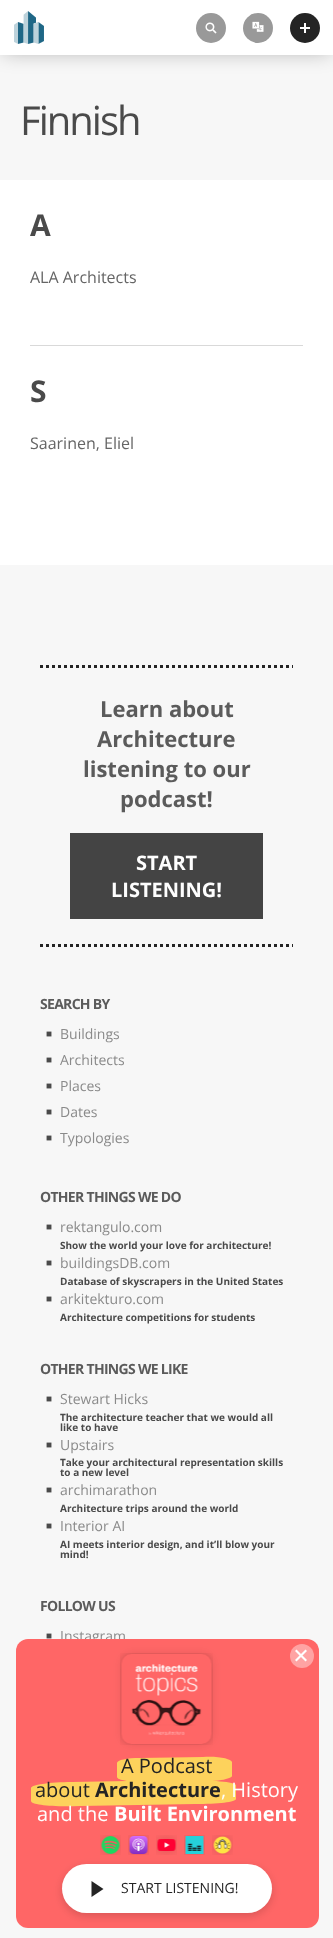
<svg xmlns="http://www.w3.org/2000/svg" width="333" height="1938" viewBox="0 0 333 1938">
  <defs>
    <filter id="blur1" x="-50%" y="-200%" width="200%" height="500%"><feGaussianBlur stdDeviation="10"/></filter>
    <filter id="blur2" x="-50%" y="-200%" width="200%" height="500%"><feGaussianBlur stdDeviation="5"/></filter>
    <filter id="blur3" x="-50%" y="-200%" width="200%" height="500%"><feGaussianBlur stdDeviation="4"/></filter>
  </defs>
  <rect width="100%" height="100%" fill="#f7f7f7"/>
  <rect x="3" y="3" width="327" height="49" fill="#000000" fill-opacity="0.3" filter="url(#blur1)"/>
  <rect x="0" y="0" width="333" height="55" fill="#ffffff"/>
  <image x="14" y="11" width="30" height="33" href="img1.png"/>
  <circle cx="211" cy="28" r="15" fill="#999999"/>
  <image x="205" y="22" width="12" height="12" href="img2.png"/>
  <circle cx="258" cy="28" r="15" fill="#999999"/>
  <image x="252" y="21" width="12" height="11" href="img3.png"/>
  <circle cx="305" cy="28" r="15" fill="#242424"/>
  <image x="300" y="23" width="10" height="10" href="img4.png"/>
  <text x="20" y="135" font-family="Open Sans" font-size="40" letter-spacing="-2" fill="#4a4a4a">Finnish</text>
  <rect x="0" y="180" width="333" height="385" fill="#ffffff"/>
  <text x="30" y="236" font-family="Open Sans" font-size="30" font-weight="bold" letter-spacing="-2" fill="#4a4a4a">A</text>
  <text x="30" y="283" font-family="Open Sans" font-size="16" fill="#656565">ALA Architects</text>
  <rect x="30" y="345" width="273" height="1" fill="#d9d9d9"/>
  <text x="30" y="402" font-family="Open Sans" font-size="30" font-weight="bold" letter-spacing="-2" fill="#4a4a4a">S</text>
  <text x="30" y="449" font-family="Open Sans" font-size="16" fill="#656565">Saarinen, Eliel</text>
  <path d="M40 666.5H293" fill="none" stroke="#242424" stroke-width="3" stroke-dasharray="3 3"/>
  <path d="M40 945.5H293" fill="none" stroke="#242424" stroke-width="3" stroke-dasharray="3 3"/>
  <text x="100" y="717" font-family="Open Sans" font-size="22" font-weight="bold" fill="#5b5b5b">Learn about</text>
  <text x="97" y="747" font-family="Open Sans" font-size="22" font-weight="bold" fill="#5b5b5b">Architecture</text>
  <text x="83" y="777" font-family="Open Sans" font-size="22" font-weight="bold" fill="#5b5b5b">listening to our</text>
  <text x="120" y="807" font-family="Open Sans" font-size="22" font-weight="bold" fill="#5b5b5b">podcast!</text>
  <rect x="70" y="833" width="193" height="86" fill="#444444"/>
  <text x="136" y="870" font-family="Open Sans" font-size="20" font-weight="bold" fill="#fefefe">START</text>
  <text x="111" y="897" font-family="Open Sans" font-size="20" font-weight="bold" fill="#fefefe">LISTENING!</text>
  <text x="40" y="1009" font-family="Open Sans" font-size="14" font-weight="bold" letter-spacing="-0.7" fill="#5b5b5b">SEARCH BY</text>
  <text x="46" y="1037" font-family="Liberation Sans" font-size="10" fill="#4a4a4a">■</text>
  <text x="60" y="1039" font-family="Open Sans" font-size="14" fill="#8a8a8a">Buildings</text>
  <text x="46" y="1063" font-family="Liberation Sans" font-size="10" fill="#4a4a4a">■</text>
  <text x="60" y="1065" font-family="Open Sans" font-size="14" fill="#8a8a8a">Architects</text>
  <text x="46" y="1089" font-family="Liberation Sans" font-size="10" fill="#4a4a4a">■</text>
  <text x="60" y="1091" font-family="Open Sans" font-size="14" fill="#8a8a8a">Places</text>
  <text x="46" y="1115" font-family="Liberation Sans" font-size="10" fill="#4a4a4a">■</text>
  <text x="60" y="1117" font-family="Open Sans" font-size="14" fill="#8a8a8a">Dates</text>
  <text x="46" y="1141" font-family="Liberation Sans" font-size="10" fill="#4a4a4a">■</text>
  <text x="60" y="1143" font-family="Open Sans" font-size="14" fill="#8a8a8a">Typologies</text>
  <text x="40" y="1202" font-family="Open Sans" font-size="14" font-weight="bold" letter-spacing="-0.7" fill="#5b5b5b">OTHER THINGS WE DO</text>
  <text x="46" y="1230" font-family="Liberation Sans" font-size="10" fill="#4a4a4a">■</text>
  <text x="60" y="1232" font-family="Open Sans" font-size="14" fill="#8a8a8a">rektangulo.com</text>
  <text x="60" y="1249" font-family="Open Sans" font-size="10" font-weight="bold" fill="#4a4a4a">Show the world your love for architecture!</text>
  <text x="46" y="1266" font-family="Liberation Sans" font-size="10" fill="#4a4a4a">■</text>
  <text x="60" y="1268" font-family="Open Sans" font-size="14" fill="#8a8a8a">buildingsDB.com</text>
  <text x="60" y="1285" font-family="Open Sans" font-size="10" font-weight="bold" fill="#4a4a4a">Database of skyscrapers in the United States</text>
  <text x="46" y="1302" font-family="Liberation Sans" font-size="10" fill="#4a4a4a">■</text>
  <text x="60" y="1304" font-family="Open Sans" font-size="14" fill="#8a8a8a">arkitekturo.com</text>
  <text x="60" y="1321" font-family="Open Sans" font-size="10" font-weight="bold" fill="#4a4a4a">Architecture competitions for students</text>
  <text x="40" y="1374" font-family="Open Sans" font-size="14" font-weight="bold" letter-spacing="-0.7" fill="#5b5b5b">OTHER THINGS WE LIKE</text>
  <text x="46" y="1402" font-family="Liberation Sans" font-size="10" fill="#4a4a4a">■</text>
  <text x="60" y="1404" font-family="Open Sans" font-size="14" fill="#8a8a8a">Stewart Hicks</text>
  <text x="60" y="1421" font-family="Open Sans" font-size="10" font-weight="bold" fill="#4a4a4a">The architecture teacher that we would all</text>
  <text x="60" y="1431" font-family="Open Sans" font-size="10" font-weight="bold" fill="#4a4a4a">like to have</text>
  <text x="46" y="1448" font-family="Liberation Sans" font-size="10" fill="#4a4a4a">■</text>
  <text x="60" y="1450" font-family="Open Sans" font-size="14" fill="#8a8a8a">Upstairs</text>
  <text x="60" y="1466" font-family="Open Sans" font-size="10" font-weight="bold" fill="#4a4a4a">Take your architectural representation skills</text>
  <text x="60" y="1476" font-family="Open Sans" font-size="10" font-weight="bold" fill="#4a4a4a">to a new level</text>
  <text x="46" y="1493" font-family="Liberation Sans" font-size="10" fill="#4a4a4a">■</text>
  <text x="60" y="1495" font-family="Open Sans" font-size="14" fill="#8a8a8a">archimarathon</text>
  <text x="60" y="1512" font-family="Open Sans" font-size="10" font-weight="bold" fill="#4a4a4a">Architecture trips around the world</text>
  <text x="46" y="1529" font-family="Liberation Sans" font-size="10" fill="#4a4a4a">■</text>
  <text x="60" y="1531" font-family="Open Sans" font-size="14" fill="#8a8a8a">Interior AI</text>
  <text x="60" y="1548" font-family="Open Sans" font-size="10" font-weight="bold" fill="#4a4a4a">AI meets interior design, and it’ll blow your</text>
  <text x="60" y="1558" font-family="Open Sans" font-size="10" font-weight="bold" fill="#4a4a4a">mind!</text>
  <text x="40" y="1611" font-family="Open Sans" font-size="14" font-weight="bold" letter-spacing="-0.7" fill="#5b5b5b">FOLLOW US</text>
  <text x="46" y="1639" font-family="Liberation Sans" font-size="10" fill="#4a4a4a">■</text>
  <text x="60" y="1641" font-family="Open Sans" font-size="14" fill="#8a8a8a">Instagram</text>
  <rect x="16" y="1639" width="303" height="289" rx="12" fill="#ff6666"/>
  <circle cx="302" cy="1656" r="12" fill="#ffa3a3"/>
  <path d="M305.5 1649.5L307 1651L296.5 1661.5L295 1660Z" fill="#ffffff"/>
  <path d="M295 1651L296.5 1649.5L307 1660L305.5 1661.5Z" fill="#ffffff"/>
  <path d="M140 1758L203 1757C219 1756 231 1759 232 1762V1776C232 1778 222 1781 209 1781L145 1782C129 1782 117 1780 117 1777V1763C117 1760 127 1758 140 1758Z" fill="#fdd25c"/>
  <rect x="122" y="1654" width="90" height="90" rx="10" fill="#000000" fill-opacity="0.1" filter="url(#blur2)"/>
  <image x="120" y="1653" width="93" height="92" href="img5.png"/>
  <text x="121" y="1773" font-family="Open Sans" font-size="20" fill="#242424">A Podcast</text>
  <path d="M72 1782L184 1780C212 1780 235 1782 236 1785V1799C236 1802 218 1804 195 1804L80 1806C53 1807 31 1805 31 1801V1788C31 1785 49 1782 72 1782Z" fill="#fdd25c"/>
  <text x="35" y="1797" font-family="Open Sans" font-size="20" fill="#242424">about</text>
  <text x="95" y="1797" font-family="Open Sans" font-size="20" font-weight="bold" fill="#242424">Architecture</text>
  <text x="221" y="1797" font-family="Open Sans" font-size="20" fill="#fefefe">, History</text>
  <text x="37" y="1821" font-family="Open Sans" font-size="20" fill="#fefefe">and the</text>
  <text x="114" y="1821" font-family="Open Sans" font-size="20" font-weight="bold" fill="#fefefe">Built Environment</text>
  <image x="100" y="1835" width="21" height="20" href="img6.png"/>
  <image x="128" y="1835" width="21" height="20" href="img7.png"/>
  <image x="156" y="1835" width="21" height="20" href="img8.png"/>
  <image x="184" y="1835" width="21" height="20" href="img9.png"/>
  <image x="212" y="1835" width="21" height="20" href="img10.png"/>
  <rect x="62" y="1867" width="210" height="49" rx="24.5" fill="#000000" fill-opacity="0.15" filter="url(#blur3)"/>
  <rect x="62" y="1864" width="210" height="49" rx="24.5" fill="#ffffff"/>
  <path d="M91.5 1897V1881L103.5 1889Z" fill="#242424"/>
  <text x="121" y="1893" font-family="Open Sans" font-size="14" fill="#242424">START LISTENING!</text>
</svg>
